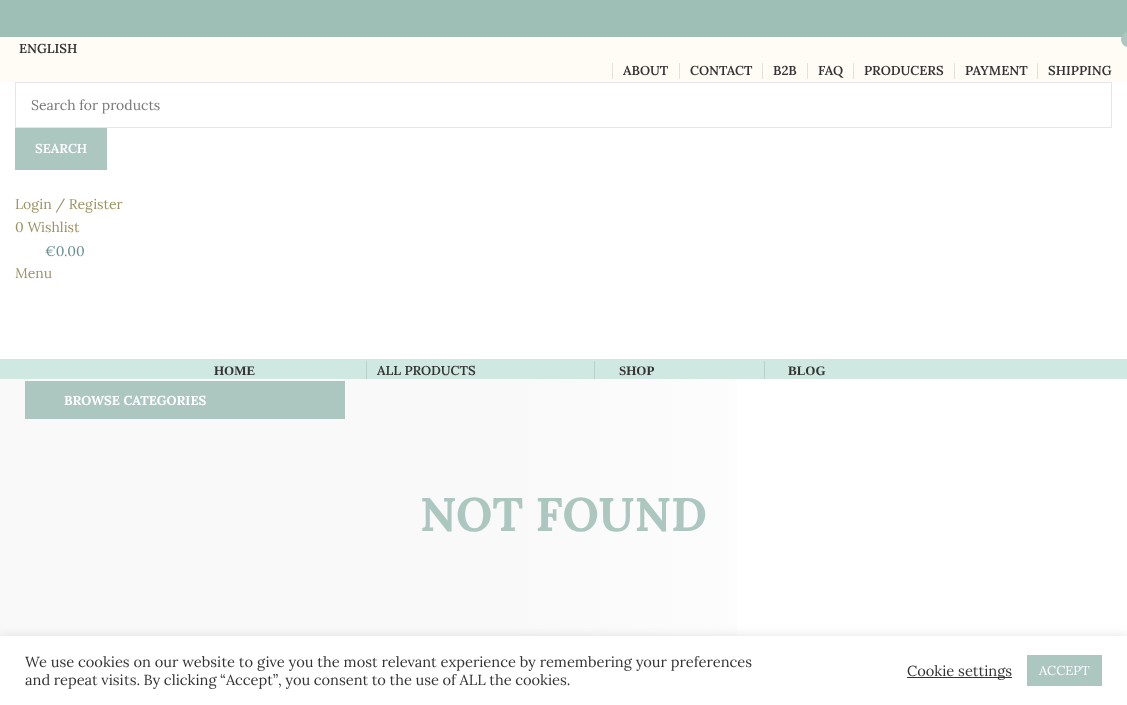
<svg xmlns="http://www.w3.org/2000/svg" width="1127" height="705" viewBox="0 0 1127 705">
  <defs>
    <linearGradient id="g1" gradientUnits="userSpaceOnUse" x1="0" y1="618" x2="1127" y2="618"><stop offset="0.45" stop-color="#f9f9f9"/><stop offset="0.8" stop-color="#ffffff"/><stop offset="1" stop-color="#ffffff"/></linearGradient>
    <filter id="blur1" x="-50%" y="-200%" width="200%" height="500%"><feGaussianBlur stdDeviation="5"/></filter>
  </defs>
  <rect width="100%" height="100%" fill="#ffffff"/>
  <rect x="0" y="0" width="1127" height="37" fill="#9ebfb5"/>
  <rect x="0" y="37" width="1127" height="45" fill="#fffcf6"/>
  <text x="19" y="53" font-family="Lora" font-size="13" font-weight="600" fill="#333333">ENGLISH</text>
  <rect x="612" y="63" width="1" height="16" fill="#e4e1dc"/>
  <text x="623" y="75" font-family="Lora" font-size="13" font-weight="600" fill="#333333">ABOUT</text>
  <rect x="679" y="63" width="1" height="16" fill="#e4e1dc"/>
  <text x="690" y="75" font-family="Lora" font-size="13" font-weight="600" fill="#333333">CONTACT</text>
  <rect x="762" y="63" width="1" height="16" fill="#e4e1dc"/>
  <text x="773" y="75" font-family="Lora" font-size="13" font-weight="600" fill="#333333">B2B</text>
  <rect x="807" y="63" width="1" height="16" fill="#e4e1dc"/>
  <text x="818" y="75" font-family="Lora" font-size="13" font-weight="600" fill="#333333">FAQ</text>
  <rect x="853" y="63" width="1" height="16" fill="#e4e1dc"/>
  <text x="864" y="75" font-family="Lora" font-size="13" font-weight="600" fill="#333333">PRODUCERS</text>
  <rect x="954" y="63" width="1" height="16" fill="#e4e1dc"/>
  <text x="965" y="75" font-family="Lora" font-size="13" font-weight="600" fill="#333333">PAYMENT</text>
  <rect x="1037" y="63" width="1" height="16" fill="#e4e1dc"/>
  <text x="1048" y="75" font-family="Lora" font-size="13" font-weight="600" fill="#333333">SHIPPING</text>
  <rect x="15.5" y="82.5" width="1096" height="45" fill="none" stroke="#e6e6e6"/>
  <text x="31" y="110" font-family="Lora" font-size="14" fill="#777777">Search for products</text>
  <rect x="15" y="128" width="92" height="42" fill="#acc7bf"/>
  <text x="35" y="153" font-family="Lora" font-size="13" font-weight="600" fill="#ffffff">SEARCH</text>
  <text x="15" y="209" font-family="Lora" font-size="14" fill="#9c9364">Login / Register</text>
  <text x="15" y="232" font-family="Lora" font-size="14" fill="#9c9364">0 Wishlist</text>
  <rect x="1121" y="32" width="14" height="15" rx="7.5" fill="#acc7bf"/>
  <text x="45" y="256" font-family="Lora" font-size="14" fill="#699090">€0.00</text>
  <text x="15" y="278" font-family="Lora" font-size="14" fill="#9c9364">Menu</text>
  <rect x="0" y="359" width="1127" height="20" fill="#cfe8e1"/>
  <text x="214" y="375" font-family="Liberation Serif" font-size="13" font-weight="bold" fill="#333333">HOME</text>
  <rect x="366" y="361" width="1" height="18" fill="#b9cfc9"/>
  <text x="377" y="375" font-family="Lora" font-size="13" font-weight="600" fill="#333333">ALL PRODUCTS</text>
  <rect x="594" y="361" width="1" height="18" fill="#b9cfc9"/>
  <text x="619" y="375" font-family="Liberation Serif" font-size="13" font-weight="bold" fill="#333333">SHOP</text>
  <rect x="764" y="361" width="1" height="18" fill="#b9cfc9"/>
  <text x="788" y="375" font-family="Liberation Serif" font-size="13" font-weight="bold" fill="#333333">BLOG</text>
  <rect x="0" y="379" width="737" height="257" fill="url(#g1)"/>
  <rect x="25" y="381" width="320" height="38" fill="#acc7bf"/>
  <text x="64" y="405" font-family="Lora" font-size="13" font-weight="bold" fill="#ffffff">BROWSE CATEGORIES</text>
  <text x="420" y="531" font-family="Lora" font-size="47.25" font-weight="bold" fill="#acc7bf">NOT FOUND</text>
  <rect x="0" y="635" width="1127" height="69" fill="#acabab" fill-opacity="0.3" filter="url(#blur1)"/>
  <rect x="0" y="636" width="1127" height="69" fill="#ffffff"/>
  <text x="25" y="667" font-family="Lora" font-size="14.65" fill="#333333">We use cookies on our website to give you the most relevant experience by remembering your preferences</text>
  <text x="25" y="685" word-spacing="-0.25" font-family="Lora" font-size="14.65" fill="#333333">and repeat visits. By clicking “Accept”, you consent to the use of ALL the cookies.</text>
  <rect x="907" y="677" width="105" height="1" fill="#333333"/>
  <text x="907" y="676" font-family="Lora" font-size="14.65" fill="#333333">Cookie settings</text>
  <rect x="1027" y="655" width="75" height="31" fill="#acc7bf"/>
  <text x="1039" y="675" font-family="Lora" font-size="13" fill="#ffffff">ACCEPT</text>
</svg>
